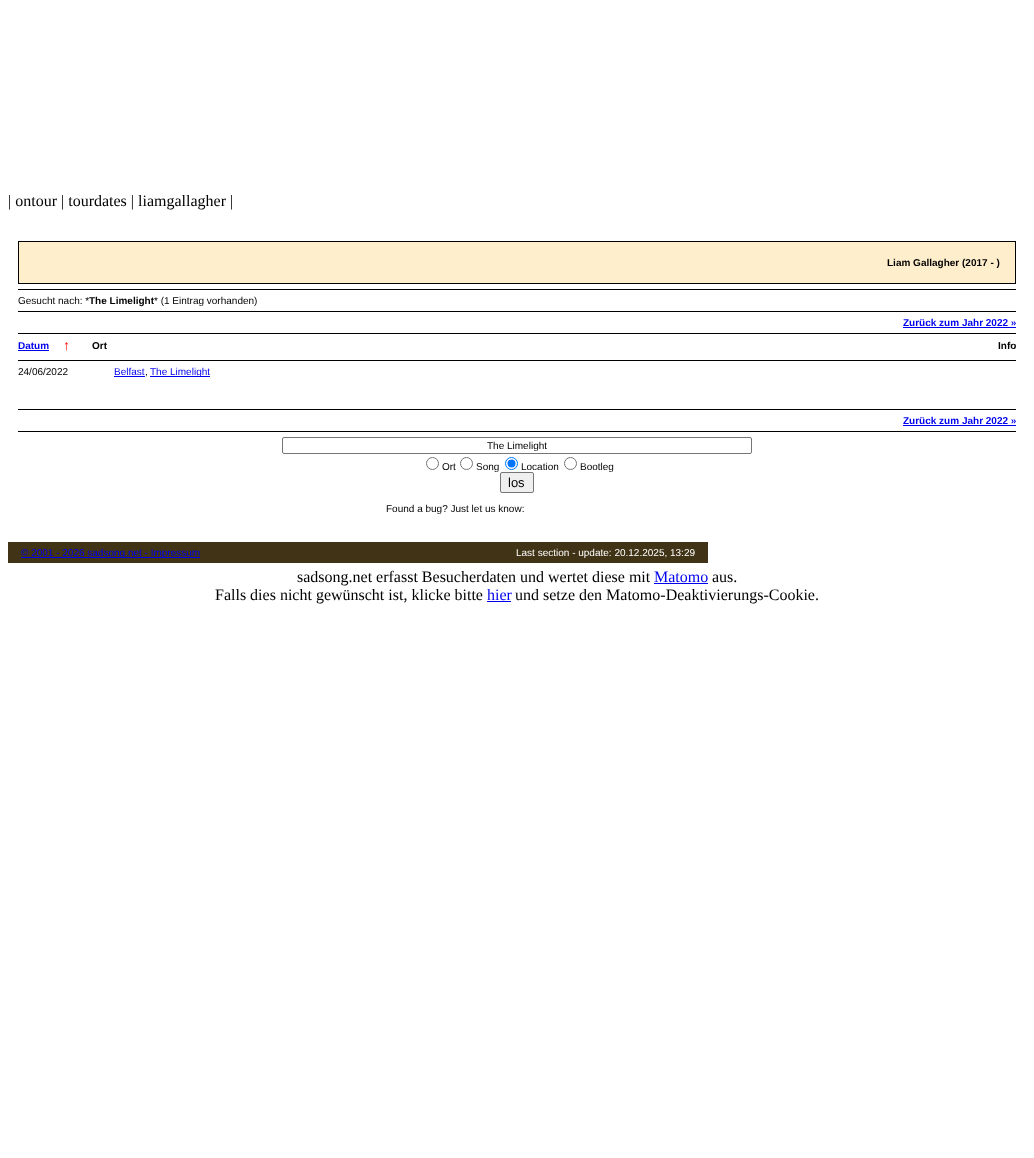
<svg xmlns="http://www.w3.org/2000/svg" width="1034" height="1158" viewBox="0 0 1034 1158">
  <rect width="100%" height="100%" fill="#ffffff"/>
  <text x="8" y="206" font-family="Liberation Serif" font-size="16" fill="#000000">| ontour | tourdates | liamgallagher |</text>
  <rect x="18.5" y="241.5" width="997" height="42" fill="#ffeecc" stroke="#000000"/>
  <text x="887" y="266" font-family="Liberation Sans" font-size="10" font-weight="bold" fill="#000000">Liam Gallagher (2017 - )</text>
  <rect x="18" y="289" width="998" height="1" fill="#000000"/>
  <text x="18" y="304" font-family="Liberation Sans" font-size="10" fill="#000000">Gesucht nach: *</text>
  <text x="89" y="304" font-family="Liberation Sans" font-size="10" font-weight="bold" fill="#000000">The Limelight</text>
  <text x="154" y="304" font-family="Liberation Sans" font-size="10" fill="#000000">* (1 Eintrag vorhanden)</text>
  <rect x="18" y="311" width="998" height="1" fill="#000000"/>
  <text x="903" y="326" font-family="Liberation Sans" font-size="10" font-weight="bold" fill="#0000ee">Zurück zum Jahr 2022 »</text>
  <rect x="903" y="327" width="113" height="1" fill="#0000ee"/>
  <rect x="18" y="333" width="998" height="1" fill="#000000"/>
  <rect x="18" y="360" width="998" height="1" fill="#000000"/>
  <text x="18" y="349" font-family="Liberation Sans" font-size="10" font-weight="bold" fill="#0000ee">Datum</text>
  <rect x="18" y="350" width="31" height="1" fill="#0000ee"/>
  <text x="63" y="350" font-family="Liberation Sans" font-size="14" font-weight="bold" fill="#ff0000">↑</text>
  <text x="92" y="349" font-family="Liberation Sans" font-size="10" font-weight="bold" fill="#000000">Ort</text>
  <text x="998" y="349" font-family="Liberation Sans" font-size="10" font-weight="bold" fill="#000000">Info</text>
  <rect x="18" y="409" width="998" height="1" fill="#000000"/>
  <text x="18" y="375" font-family="Liberation Sans" font-size="10" fill="#000000">24/06/2022</text>
  <text x="114" y="375" font-family="Liberation Sans" font-size="10" fill="#0000ee">Belfast</text>
  <rect x="114" y="376" width="31" height="1" fill="#0000ee"/>
  <text x="145" y="375" font-family="Liberation Sans" font-size="10" fill="#000000">,</text>
  <rect x="150" y="376" width="60" height="1" fill="#0000ee"/>
  <text x="150" y="375" font-family="Liberation Sans" font-size="10" fill="#0000ee">The Limelight</text>
  <text x="903" y="424" font-family="Liberation Sans" font-size="10" font-weight="bold" fill="#0000ee">Zurück zum Jahr 2022 »</text>
  <rect x="903" y="425" width="113" height="1" fill="#0000ee"/>
  <rect x="18" y="431" width="998" height="1" fill="#000000"/>
  <rect x="282.5" y="437.5" width="469" height="16" rx="1.5" fill="none" stroke="#767676"/>
  <text x="487" y="449" font-family="Liberation Sans" font-size="10" fill="#000000">The Limelight</text>
  <circle cx="432.5" cy="463.5" r="6" fill="none" stroke="#767676"/>
  <text x="442" y="470" font-family="Liberation Sans" font-size="10" fill="#000000">Ort</text>
  <circle cx="466.5" cy="463.5" r="6" fill="none" stroke="#767676"/>
  <text x="476" y="470" font-family="Liberation Sans" font-size="10" fill="#000000">Song</text>
  <circle cx="511.5" cy="463.5" r="6" fill="none" stroke="#0075ff"/>
  <circle cx="511.5" cy="463.5" r="4" fill="#0075ff"/>
  <text x="521" y="470" font-family="Liberation Sans" font-size="10" fill="#000000">Location</text>
  <circle cx="570.5" cy="463.5" r="6" fill="none" stroke="#767676"/>
  <text x="580" y="470" font-family="Liberation Sans" font-size="10" fill="#000000">Bootleg</text>
  <rect x="500.5" y="472.5" width="33" height="20" rx="1.5" fill="#efefef" stroke="#767676"/>
  <text x="508" y="487" font-family="Liberation Sans" font-size="13" fill="#000000">los</text>
  <text x="386" y="512" font-family="Liberation Sans" font-size="10" fill="#000000">Found a bug? Just let us know:</text>
  <rect x="8" y="542" width="700" height="21" fill="#413316"/>
  <rect x="21" y="557" width="179" height="1" fill="#0000ee"/>
  <text x="21" y="556" font-family="Liberation Sans" font-size="10" fill="#0000ee">© 2001 - 2026 sadsong.net - Impressum</text>
  <text x="516" y="556" font-family="Liberation Sans" font-size="10" fill="#ffffff">Last section - update: 20.12.2025, 13:29</text>
  <text x="297" y="582" font-family="Liberation Serif" font-size="16" fill="#000000">sadsong.net erfasst Besucherdaten und wertet diese mit</text>
  <text x="654" y="582" font-family="Liberation Serif" font-size="16" fill="#0000ee">Matomo</text>
  <rect x="654" y="583" width="54" height="1" fill="#0000ee"/>
  <text x="712" y="582" font-family="Liberation Serif" font-size="16" fill="#000000">aus.</text>
  <text x="215" y="600" font-family="Liberation Serif" font-size="16" fill="#000000">Falls dies nicht gewünscht ist, klicke bitte</text>
  <text x="487" y="600" font-family="Liberation Serif" font-size="16" fill="#0000ee">hier</text>
  <rect x="487" y="601" width="24" height="1" fill="#0000ee"/>
  <text x="515" y="600" font-family="Liberation Serif" font-size="16" fill="#000000">und setze den Matomo-Deaktivierungs-Cookie.</text>
</svg>
